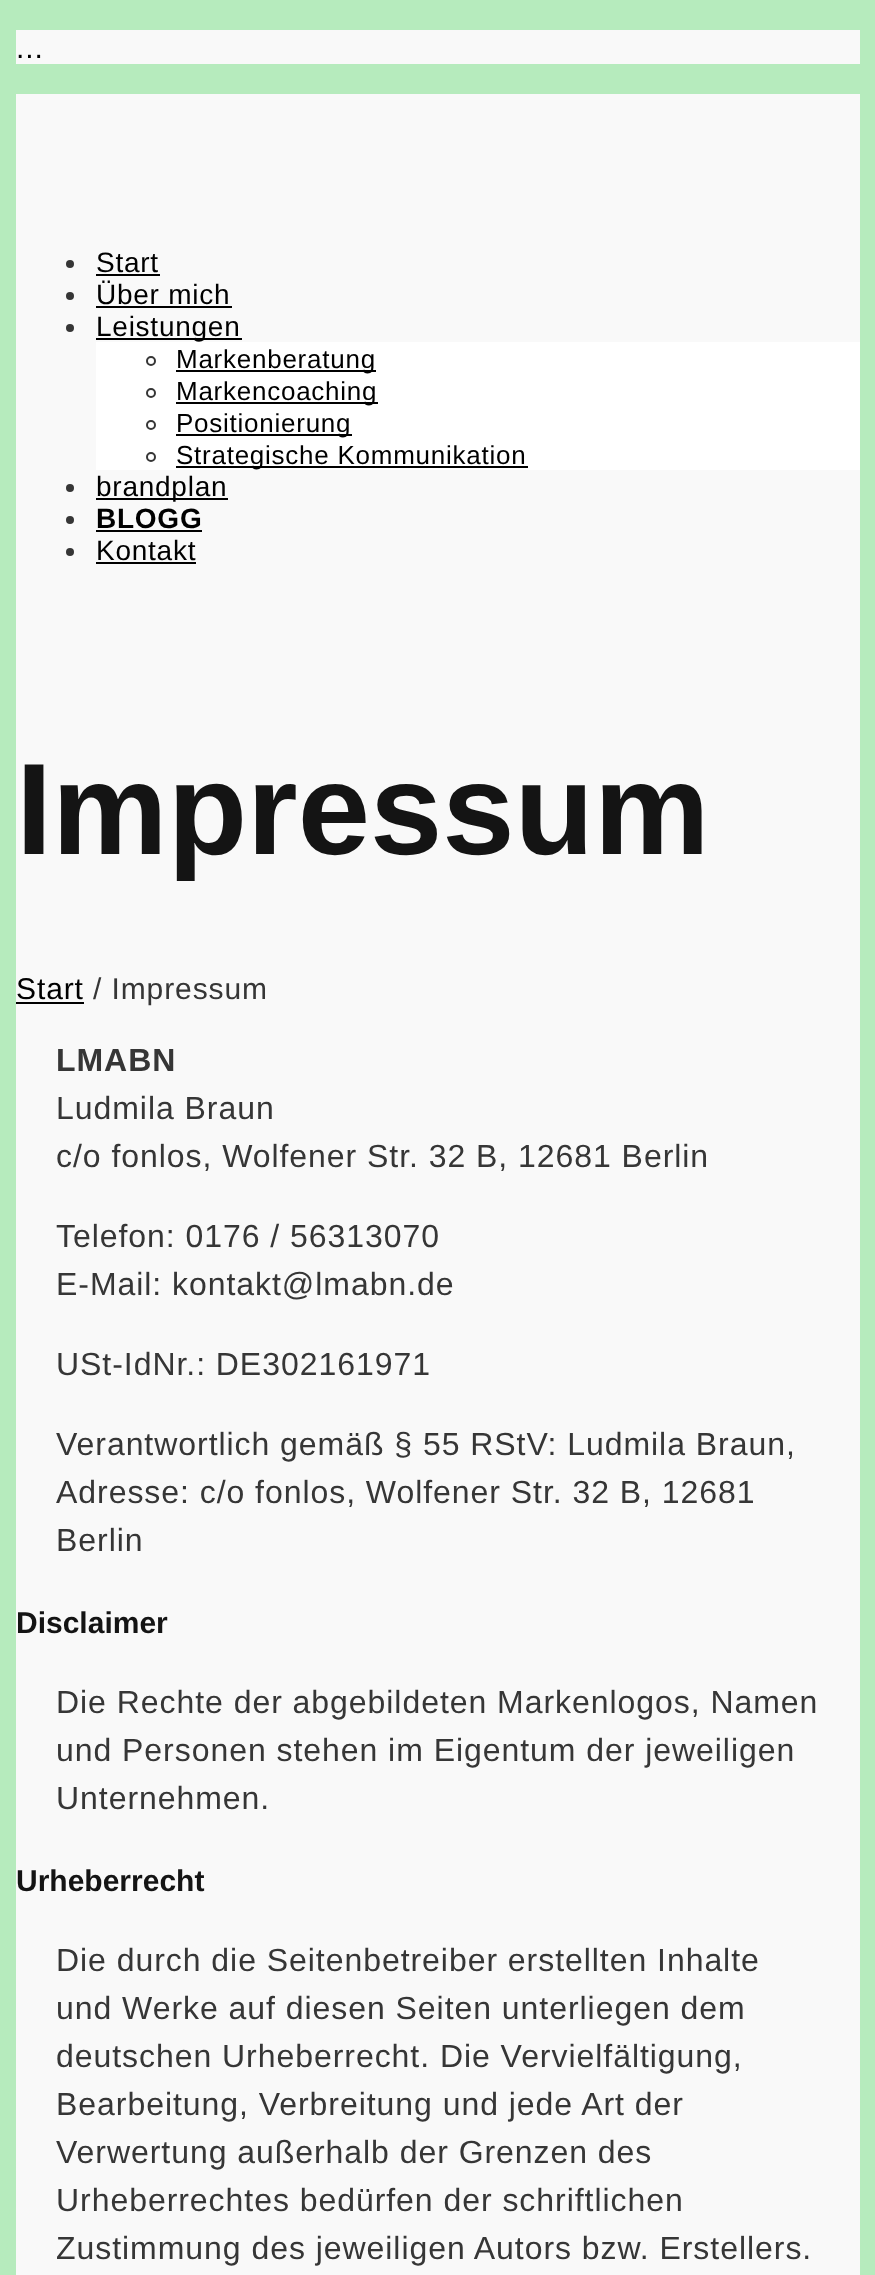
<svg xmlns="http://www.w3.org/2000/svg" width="875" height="2275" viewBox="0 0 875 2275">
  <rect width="100%" height="100%" fill="#b6ebbd"/>
  <rect x="16" y="30" width="844" height="34" fill="#f9f9f9"/>
  <text x="16" y="58" font-family="Liberation Sans" font-size="30" letter-spacing="0.9" fill="#000000">...</text>
  <rect x="16" y="94" width="844" height="2181" fill="#f9f9f9"/>
  <circle cx="70" cy="264" r="4" fill="#363636"/>
  <text x="96" y="272" font-family="Liberation Sans" font-size="28" letter-spacing="0.75" fill="#000000">Start</text>
  <rect x="96" y="274" width="64" height="2" fill="#000000"/>
  <circle cx="70" cy="296" r="4" fill="#363636"/>
  <text x="96" y="304" font-family="Liberation Sans" font-size="28" letter-spacing="0.75" fill="#000000">Über mich</text>
  <rect x="96" y="306" width="136" height="2" fill="#000000"/>
  <circle cx="70" cy="328" r="4" fill="#363636"/>
  <rect x="96" y="338" width="146" height="2" fill="#000000"/>
  <text x="96" y="336" font-family="Liberation Sans" font-size="28" letter-spacing="0.75" fill="#000000">Leistungen</text>
  <rect x="96" y="342" width="764" height="128" fill="#ffffff"/>
  <circle cx="151" cy="361" r="4" fill="none" stroke="#363636" stroke-width="2"/>
  <rect x="176" y="370" width="200" height="2" fill="#000000"/>
  <text x="176" y="368" font-family="Liberation Sans" font-size="26" letter-spacing="0.75" fill="#000000">Markenberatung</text>
  <circle cx="151" cy="393" r="4" fill="none" stroke="#363636" stroke-width="2"/>
  <rect x="176" y="402" width="202" height="2" fill="#000000"/>
  <text x="176" y="400" font-family="Liberation Sans" font-size="26" letter-spacing="0.75" fill="#000000">Markencoaching</text>
  <circle cx="151" cy="425" r="4" fill="none" stroke="#363636" stroke-width="2"/>
  <rect x="176" y="434" width="176" height="2" fill="#000000"/>
  <text x="176" y="432" font-family="Liberation Sans" font-size="26" letter-spacing="0.75" fill="#000000">Positionierung</text>
  <circle cx="151" cy="457" r="4" fill="none" stroke="#363636" stroke-width="2"/>
  <rect x="176" y="466" width="352" height="2" fill="#000000"/>
  <text x="176" y="464" font-family="Liberation Sans" font-size="26" letter-spacing="0.75" fill="#000000">Strategische Kommunikation</text>
  <circle cx="70" cy="488" r="4" fill="#363636"/>
  <rect x="96" y="498" width="132" height="2" fill="#000000"/>
  <text x="96" y="496" font-family="Liberation Sans" font-size="28" letter-spacing="0.75" fill="#000000">brandplan</text>
  <circle cx="70" cy="520" r="4" fill="#363636"/>
  <text x="96" y="528" font-family="Liberation Sans" font-size="28" font-weight="bold" letter-spacing="0.75" fill="#000000">BLOGG</text>
  <rect x="96" y="530" width="106" height="2" fill="#000000"/>
  <circle cx="70" cy="552" r="4" fill="#363636"/>
  <text x="96" y="560" font-family="Liberation Sans" font-size="28" letter-spacing="0.75" fill="#000000">Kontakt</text>
  <rect x="96" y="562" width="100" height="2" fill="#000000"/>
  <text x="16" y="854" font-family="Liberation Sans" font-size="130" font-weight="bold" fill="#141414">Impressum</text>
  <text x="16" y="999" font-family="Liberation Sans" font-size="30" letter-spacing="0.9" fill="#000000">Start</text>
  <rect x="16" y="1002" width="68" height="2" fill="#000000"/>
  <text x="93" y="999" font-family="Liberation Sans" font-size="30" letter-spacing="0.9" fill="#363636">/ Impressum</text>
  <text x="56" y="1071" font-family="Liberation Sans" font-size="32" font-weight="bold" letter-spacing="0.95" fill="#363636">LMABN</text>
  <text x="56" y="1119" font-family="Liberation Sans" font-size="32" letter-spacing="0.95" fill="#363636">Ludmila Braun</text>
  <text x="56" y="1167" font-family="Liberation Sans" font-size="32" letter-spacing="0.95" fill="#363636">c/o fonlos, Wolfener Str. 32 B, 12681 Berlin</text>
  <text x="56" y="1247" font-family="Liberation Sans" font-size="32" letter-spacing="0.95" fill="#363636">Telefon: 0176 / 56313070</text>
  <text x="56" y="1295" font-family="Liberation Sans" font-size="32" letter-spacing="0.95" fill="#363636">E-Mail: kontakt@lmabn.de</text>
  <text x="56" y="1375" font-family="Liberation Sans" font-size="32" letter-spacing="0.95" fill="#363636">USt-IdNr.: DE302161971</text>
  <text x="56" y="1455" font-family="Liberation Sans" font-size="32" letter-spacing="0.95" fill="#363636">Verantwortlich gemäß § 55 RStV: Ludmila Braun,</text>
  <text x="56" y="1503" font-family="Liberation Sans" font-size="32" letter-spacing="0.95" fill="#363636">Adresse: c/o fonlos, Wolfener Str. 32 B, 12681</text>
  <text x="56" y="1551" font-family="Liberation Sans" font-size="32" letter-spacing="0.95" fill="#363636">Berlin</text>
  <text x="16" y="1633" font-family="Liberation Sans" font-size="30" font-weight="bold" fill="#141414">Disclaimer</text>
  <text x="56" y="1713" font-family="Liberation Sans" font-size="32" letter-spacing="0.95" fill="#363636">Die Rechte der abgebildeten Markenlogos, Namen</text>
  <text x="56" y="1761" font-family="Liberation Sans" font-size="32" letter-spacing="0.95" fill="#363636">und Personen stehen im Eigentum der jeweiligen</text>
  <text x="56" y="1809" font-family="Liberation Sans" font-size="32" letter-spacing="0.95" fill="#363636">Unternehmen.</text>
  <text x="16" y="1891" font-family="Liberation Sans" font-size="30" font-weight="bold" fill="#141414">Urheberrecht</text>
  <text x="56" y="1971" font-family="Liberation Sans" font-size="32" letter-spacing="0.95" fill="#363636">Die durch die Seitenbetreiber erstellten Inhalte</text>
  <text x="56" y="2019" font-family="Liberation Sans" font-size="32" letter-spacing="0.95" fill="#363636">und Werke auf diesen Seiten unterliegen dem</text>
  <text x="56" y="2067" font-family="Liberation Sans" font-size="32" letter-spacing="0.95" fill="#363636">deutschen Urheberrecht. Die Vervielfältigung,</text>
  <text x="56" y="2115" font-family="Liberation Sans" font-size="32" letter-spacing="0.95" fill="#363636">Bearbeitung, Verbreitung und jede Art der</text>
  <text x="56" y="2163" font-family="Liberation Sans" font-size="32" letter-spacing="0.95" fill="#363636">Verwertung außerhalb der Grenzen des</text>
  <text x="56" y="2211" font-family="Liberation Sans" font-size="32" letter-spacing="0.95" fill="#363636">Urheberrechtes bedürfen der schriftlichen</text>
  <text x="56" y="2259" font-family="Liberation Sans" font-size="32" letter-spacing="0.95" fill="#363636">Zustimmung des jeweiligen Autors bzw. Erstellers.</text>
</svg>
